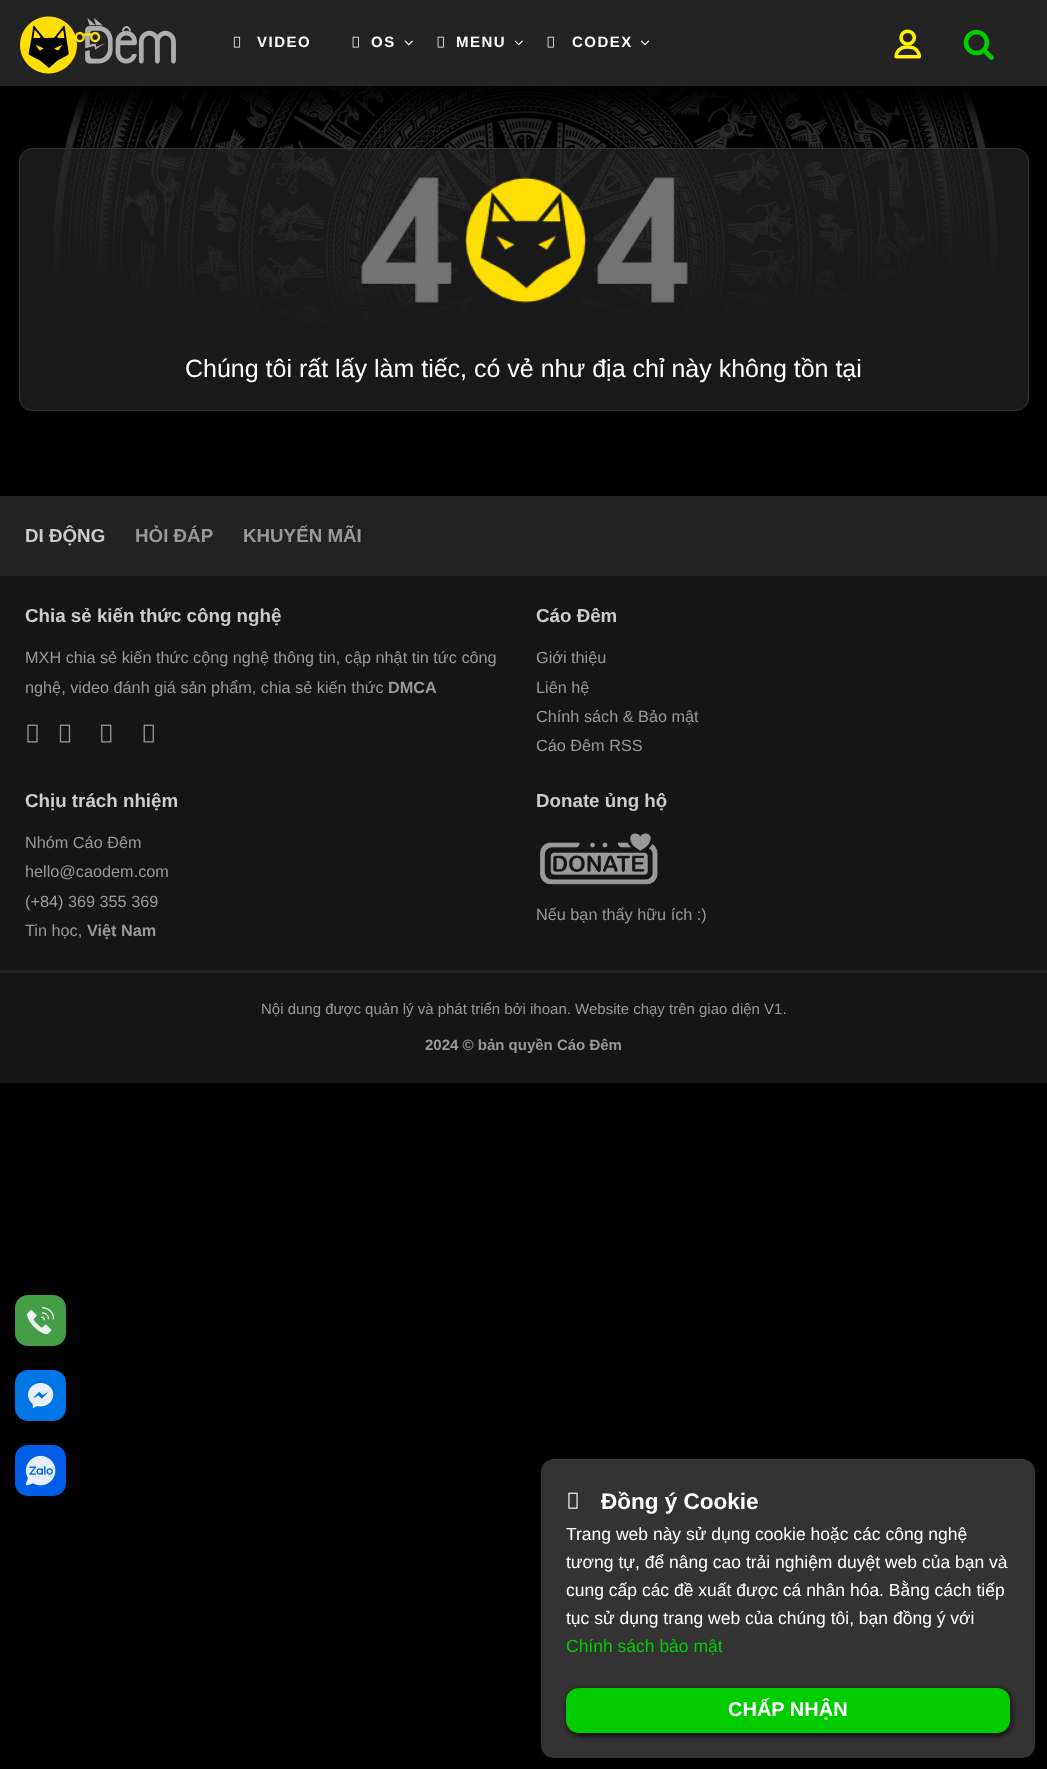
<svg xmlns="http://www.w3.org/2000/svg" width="1047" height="1769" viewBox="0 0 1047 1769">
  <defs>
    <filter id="blur1" x="-50%" y="-200%" width="200%" height="500%"><feGaussianBlur stdDeviation="3"/></filter>
  </defs>
  <rect width="100%" height="100%" fill="#000000"/>
  <rect x="0" y="0" width="1047" height="86" fill="#232323"/>
  <image x="20" y="16" width="156" height="58" href="img1.png"/>
  <image x="233" y="36" width="8" height="12" href="img2.png"/>
  <text x="257" y="47" font-family="Liberation Sans" font-size="15" font-weight="bold" letter-spacing="1.5" fill="#ffffff">VIDEO</text>
  <image x="352" y="36" width="7" height="12" href="img3.png"/>
  <text x="371" y="47" font-family="Liberation Sans" font-size="15" font-weight="bold" letter-spacing="1.5" fill="#ffffff">OS</text>
  <image x="404" y="40" width="9" height="6" href="img4.png"/>
  <image x="437" y="36" width="7" height="12" href="img3.png"/>
  <text x="456" y="47" font-family="Liberation Sans" font-size="15" font-weight="bold" letter-spacing="1.5" fill="#ffffff">MENU</text>
  <image x="514" y="40" width="9" height="6" href="img4.png"/>
  <image x="547" y="36" width="7" height="12" href="img3.png"/>
  <text x="572" y="47" font-family="Liberation Sans" font-size="15" font-weight="bold" letter-spacing="1.5" fill="#ffffff">CODEX</text>
  <image x="640" y="40" width="10" height="6" href="img5.png"/>
  <image x="894" y="29" width="27" height="30" href="img6.png"/>
  <image x="963" y="29" width="31" height="31" href="img7.png"/>
  <image x="53" y="86" width="945" height="264" href="img8.png"/>
  <rect x="19.5" y="148.5" width="1009" height="262" rx="12.5" fill="#222222" fill-opacity="0.72" stroke="#333333"/>
  <image x="361" y="177" width="327" height="126" href="img9.png"/>
  <text x="185" y="377" font-family="Liberation Sans" font-size="25" fill="#ffffff">Chúng tôi rất lấy làm tiếc, có vẻ như địa chỉ này không tồn tại</text>
  <rect x="0" y="496" width="1047" height="80" fill="#222222"/>
  <text x="25" y="542" font-family="Liberation Sans" font-size="18.75" font-weight="bold" fill="#cccccc">DI ĐỘNG</text>
  <text x="135" y="542" font-family="Liberation Sans" font-size="18.75" font-weight="bold" fill="#999999">HỎI ĐÁP</text>
  <text x="243" y="542" font-family="Liberation Sans" font-size="18.75" font-weight="bold" fill="#999999">KHUYẾN MÃI</text>
  <rect x="0" y="576" width="1047" height="394" fill="#151515"/>
  <text x="25" y="622" font-family="Liberation Sans" font-size="18.75" font-weight="bold" fill="#cccccc">Chia sẻ kiến thức công nghệ</text>
  <text x="25" y="663" font-family="Liberation Sans" font-size="16.25" fill="#999999">MXH chia sẻ kiến thức cộng nghệ thông tin, cập nhật tin tức công</text>
  <text x="25" y="693" font-family="Liberation Sans" font-size="16.25" fill="#999999">nghệ, video đánh giá sản phẩm, chia sẻ kiến thức</text>
  <text x="388" y="693" font-family="Liberation Sans" font-size="16.25" font-weight="bold" fill="#999999">DMCA</text>
  <image x="27" y="724" width="11" height="19" href="img10.png"/>
  <image x="59" y="724" width="12" height="19" href="img11.png"/>
  <image x="101" y="724" width="11" height="19" href="img12.png"/>
  <image x="143" y="724" width="11" height="19" href="img13.png"/>
  <text x="536" y="622" font-family="Liberation Sans" font-size="18.75" font-weight="bold" fill="#cccccc">Cáo Đêm</text>
  <text x="536" y="663" font-family="Liberation Sans" font-size="16.25" fill="#999999">Giới thiệu</text>
  <text x="536" y="693" font-family="Liberation Sans" font-size="16.25" fill="#999999">Liên hệ</text>
  <text x="536" y="722" font-family="Liberation Sans" font-size="16.25" fill="#999999">Chính sách &amp; Bảo mật</text>
  <text x="536" y="751" font-family="Liberation Sans" font-size="16.25" fill="#999999">Cáo Đêm RSS</text>
  <text x="25" y="807" font-family="Liberation Sans" font-size="18.75" font-weight="bold" fill="#cccccc">Chịu trách nhiệm</text>
  <text x="25" y="848" font-family="Liberation Sans" font-size="16.25" fill="#999999">Nhóm Cáo Đêm</text>
  <text x="25" y="877" font-family="Liberation Sans" font-size="16.25" fill="#999999">hello@caodem.com</text>
  <text x="25" y="907" font-family="Liberation Sans" font-size="16.25" fill="#999999">(+84) 369 355 369</text>
  <text x="25" y="936" font-family="Liberation Sans" font-size="16.25" fill="#999999">Tin học,</text>
  <text x="87" y="936" font-family="Liberation Sans" font-size="16.25" font-weight="bold" fill="#999999">Việt Nam</text>
  <text x="536" y="807" font-family="Liberation Sans" font-size="18.75" font-weight="bold" fill="#cccccc">Donate ủng hộ</text>
  <image x="540" y="833" width="118" height="52" href="img14.png"/>
  <text x="536" y="920" font-family="Liberation Sans" font-size="16.25" fill="#999999">Nếu bạn thấy hữu ích :)</text>
  <rect x="0" y="973" width="1047" height="110" fill="#151515"/>
  <rect x="0" y="970" width="1047" height="3" fill="#222222"/>
  <text x="261" y="1014" font-family="Liberation Sans" font-size="15" fill="#999999">Nội dung được quản lý và phát triển bởi ihoan. Website chạy trên giao diện V1.</text>
  <text x="425" y="1050" font-family="Liberation Sans" font-size="15" font-weight="bold" fill="#999999">2024 © bản quyền Cáo Đêm</text>
  <rect x="541" y="1459" width="494" height="299" rx="13" fill="#333333"/>
  <image x="568" y="1492" width="10" height="17" href="img15.png"/>
  <text x="601" y="1509" font-family="Liberation Sans" font-size="22.5" font-weight="bold" fill="#ffffff">Đồng ý Cookie</text>
  <text x="566" y="1540" font-family="Liberation Sans" font-size="17.5" fill="#ffffff">Trang web này sử dụng cookie hoặc các công nghệ</text>
  <text x="566" y="1568" font-family="Liberation Sans" font-size="17.5" fill="#ffffff">tương tự, để nâng cao trải nghiệm duyệt web của bạn và</text>
  <text x="566" y="1596" font-family="Liberation Sans" font-size="17.5" fill="#ffffff">cung cấp các đề xuất được cá nhân hóa. Bằng cách tiếp</text>
  <text x="566" y="1624" font-family="Liberation Sans" font-size="17.5" fill="#ffffff">tục sử dụng trang web của chúng tôi, bạn đồng ý với</text>
  <text x="566" y="1652" font-family="Liberation Sans" font-size="17.5" fill="#00cc00">Chính sách bảo mật</text>
  <rect x="568" y="1690" width="443" height="45" rx="13" fill="#000000" filter="url(#blur1)"/>
  <rect x="566" y="1688" width="444" height="45" rx="13" fill="#00cc00"/>
  <text x="728" y="1716" font-family="Liberation Sans" font-size="20" font-weight="bold" fill="#ffffff">CHẤP NHẬN</text>
  <rect x="15" y="1295" width="51" height="51" rx="13" fill="#449e48"/>
  <image x="27" y="1307" width="28" height="28" href="img16.png"/>
  <rect x="15" y="1370" width="51" height="51" rx="13" fill="#0075e6"/>
  <image x="28" y="1383" width="26" height="26" href="img17.png"/>
  <rect x="15" y="1445" width="51" height="51" rx="13" fill="#005ee6"/>
  <image x="25" y="1455" width="31" height="31" href="img18.png"/>
</svg>
